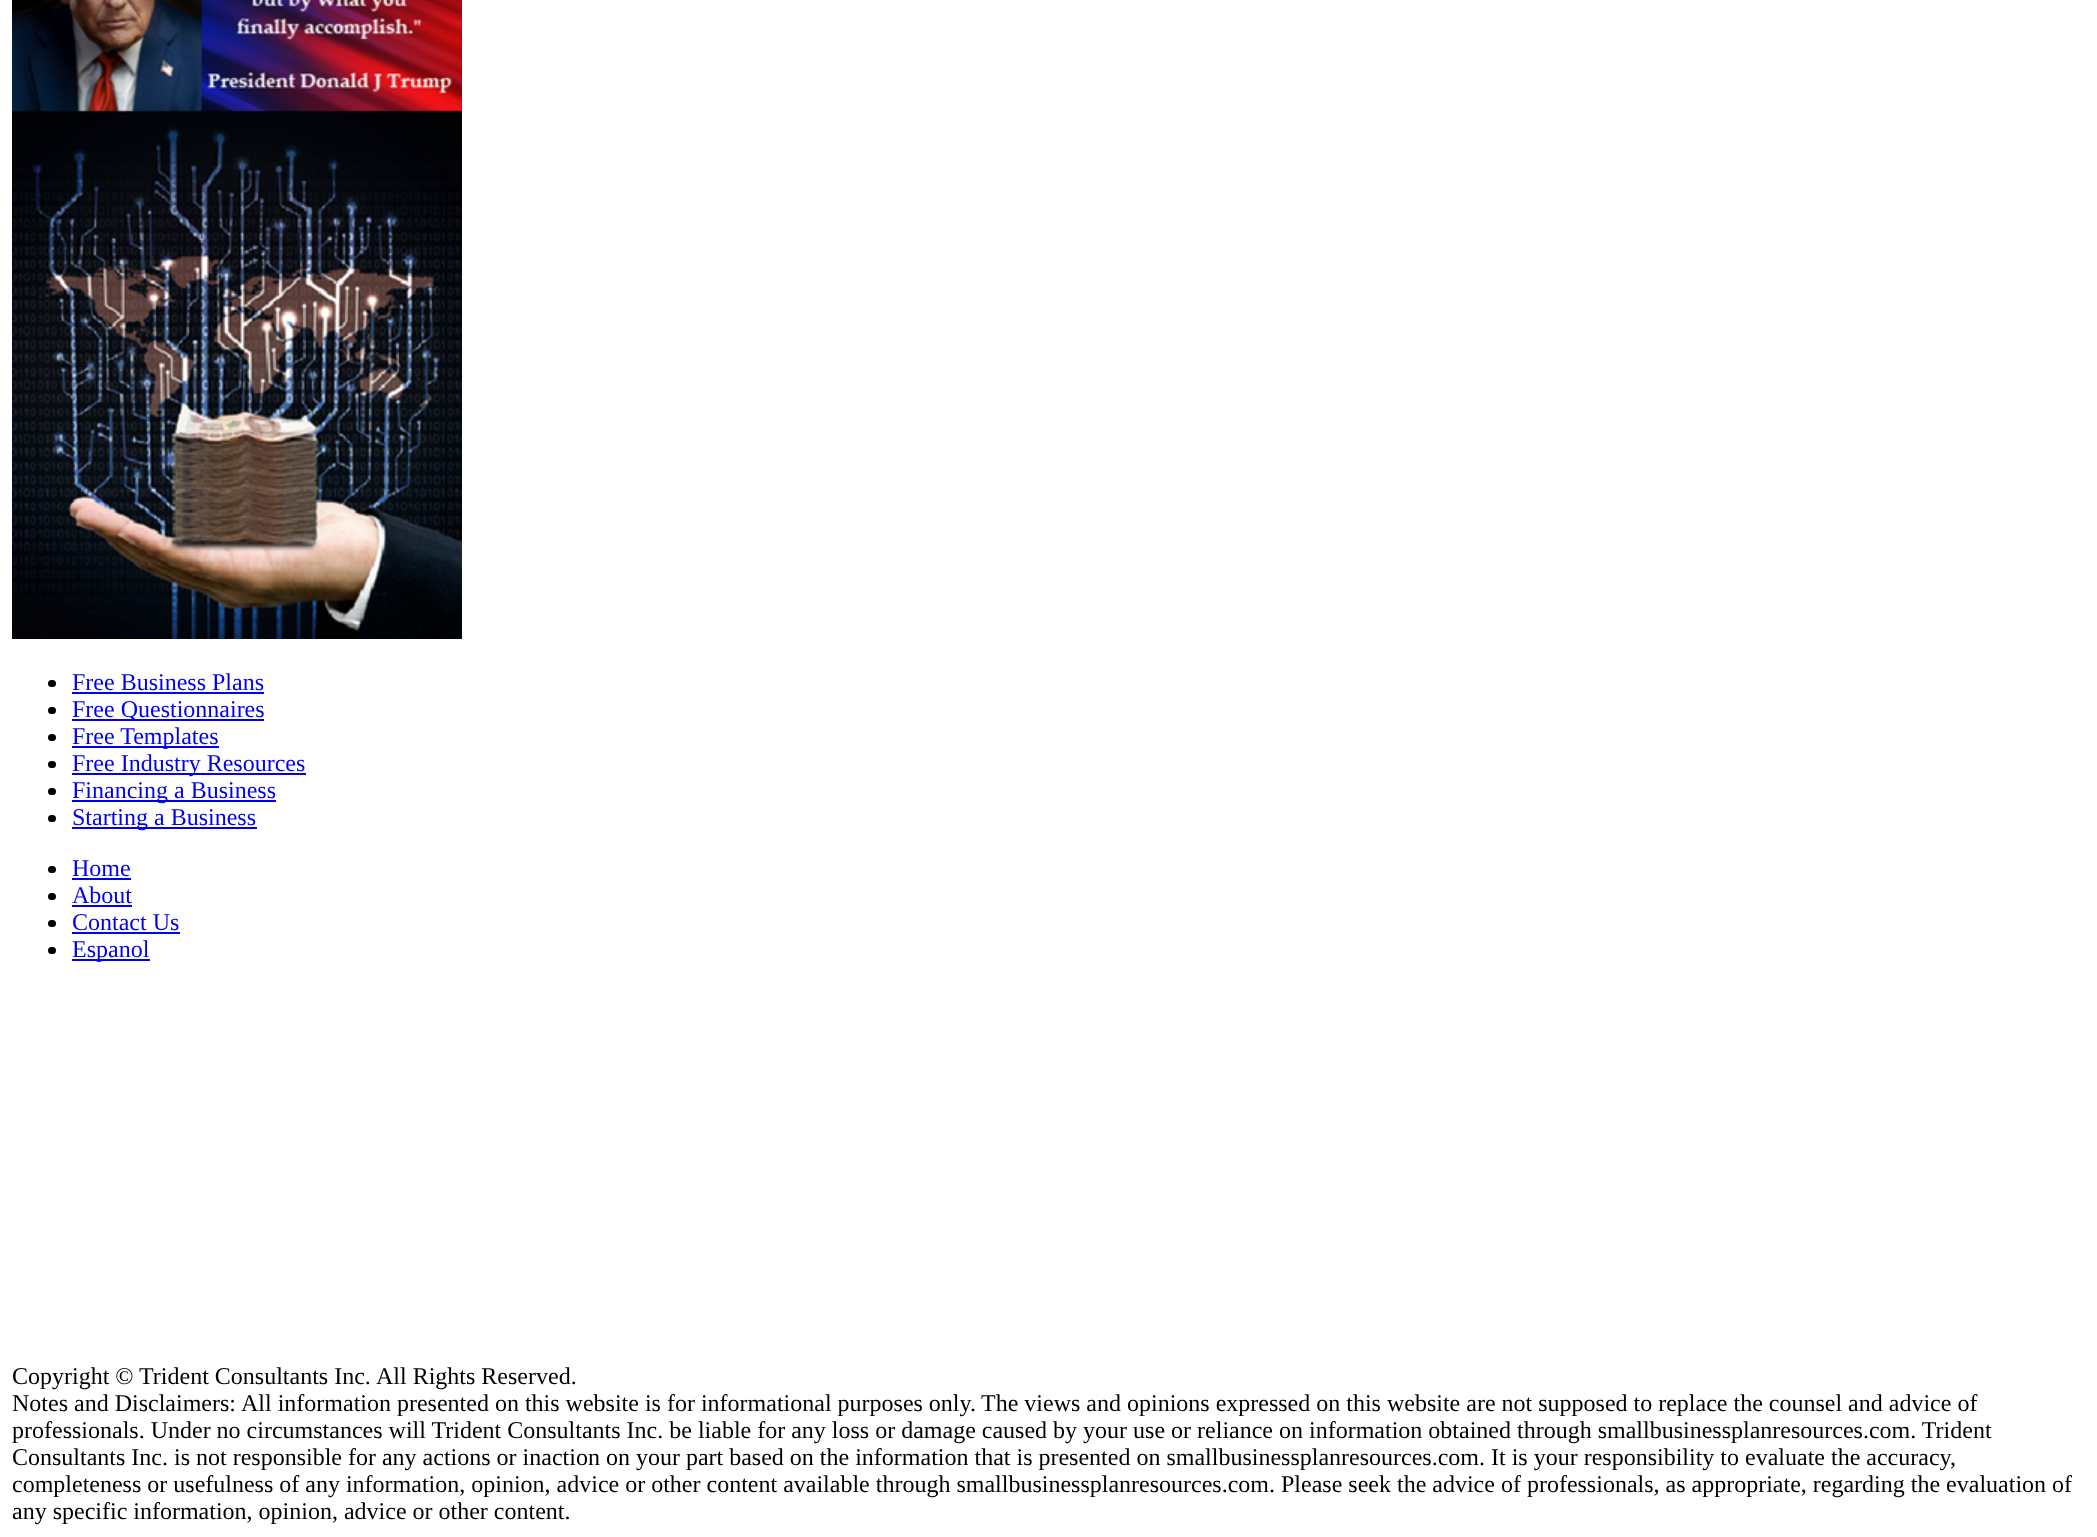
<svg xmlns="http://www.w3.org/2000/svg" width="2097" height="1537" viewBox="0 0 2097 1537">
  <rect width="100%" height="100%" fill="#ffffff"/>
  <image x="12" y="0" width="450" height="639" href="img1.png"/>
  <rect x="48" y="680" width="8" height="7" rx="3.5" fill="#000000"/>
  <text x="72" y="690" font-family="Liberation Serif" font-size="24" fill="#0000ee">Free Business Plans</text>
  <rect x="72" y="692" width="192" height="2" fill="#0000ee"/>
  <rect x="48" y="707" width="8" height="7" rx="3.5" fill="#000000"/>
  <rect x="72" y="719" width="192" height="2" fill="#0000ee"/>
  <text x="72" y="717" font-family="Liberation Serif" font-size="24" fill="#0000ee">Free Questionnaires</text>
  <rect x="48" y="734" width="8" height="7" rx="3.5" fill="#000000"/>
  <rect x="72" y="746" width="147" height="2" fill="#0000ee"/>
  <text x="72" y="744" font-family="Liberation Serif" font-size="24" fill="#0000ee">Free Templates</text>
  <rect x="48" y="761" width="8" height="7" rx="3.5" fill="#000000"/>
  <rect x="72" y="773" width="234" height="2" fill="#0000ee"/>
  <text x="72" y="771" font-family="Liberation Serif" font-size="24" fill="#0000ee">Free Industry Resources</text>
  <rect x="48" y="788" width="8" height="7" rx="3.5" fill="#000000"/>
  <rect x="72" y="800" width="204" height="2" fill="#0000ee"/>
  <text x="72" y="798" font-family="Liberation Serif" font-size="24" fill="#0000ee">Financing a Business</text>
  <rect x="48" y="815" width="8" height="7" rx="3.5" fill="#000000"/>
  <rect x="72" y="827" width="185" height="2" fill="#0000ee"/>
  <text x="72" y="825" font-family="Liberation Serif" font-size="24" fill="#0000ee">Starting a Business</text>
  <rect x="48" y="866" width="8" height="7" rx="3.5" fill="#000000"/>
  <text x="72" y="876" font-family="Liberation Serif" font-size="24" fill="#0000ee">Home</text>
  <rect x="72" y="878" width="59" height="2" fill="#0000ee"/>
  <rect x="48" y="893" width="8" height="7" rx="3.5" fill="#000000"/>
  <text x="72" y="903" font-family="Liberation Serif" font-size="24" fill="#0000ee">About</text>
  <rect x="72" y="905" width="60" height="2" fill="#0000ee"/>
  <rect x="48" y="920" width="8" height="7" rx="3.5" fill="#000000"/>
  <text x="72" y="930" font-family="Liberation Serif" font-size="24" fill="#0000ee">Contact Us</text>
  <rect x="72" y="932" width="108" height="2" fill="#0000ee"/>
  <rect x="48" y="947" width="8" height="7" rx="3.5" fill="#000000"/>
  <rect x="72" y="959" width="78" height="2" fill="#0000ee"/>
  <text x="72" y="957" font-family="Liberation Serif" font-size="24" fill="#0000ee">Espanol</text>
  <text x="12" y="1384" font-family="Liberation Serif" font-size="24" fill="#000000">Copyright ©</text>
  <text x="139" y="1384" font-family="Liberation Serif" font-size="24" fill="#000000">Trident Consultants Inc.</text>
  <text x="376" y="1384" font-family="Liberation Serif" font-size="24" fill="#000000">All Rights Reserved.</text>
  <text x="12" y="1411" font-family="Liberation Serif" font-size="24" fill="#000000">Notes and Disclaimers:</text>
  <text x="241" y="1411" font-family="Liberation Serif" font-size="24" fill="#000000">All information presented on this website is for informational purposes only.</text>
  <text x="981" y="1411" font-family="Liberation Serif" font-size="24" fill="#000000">The views and opinions expressed on this website are not supposed to replace the counsel and advice of</text>
  <text x="12" y="1438" font-family="Liberation Serif" font-size="24" fill="#000000">professionals. Under no circumstances will Trident Consultants Inc. be liable for any loss or damage caused by your use or reliance on information obtained through smallbusinessplanresources.com. Trident</text>
  <text x="12" y="1465" font-family="Liberation Serif" font-size="24" fill="#000000">Consultants Inc. is not responsible for any actions or inaction on your part based on the information that is presented on smallbusinessplanresources.com. It is your responsibility to evaluate the accuracy,</text>
  <text x="12" y="1492" font-family="Liberation Serif" font-size="24" fill="#000000">completeness or usefulness of any information, opinion, advice or other content available through smallbusinessplanresources.com. Please seek the advice of professionals, as appropriate, regarding the evaluation of</text>
  <text x="12" y="1519" font-family="Liberation Serif" font-size="24" fill="#000000">any specific information, opinion, advice or other content.</text>
</svg>
